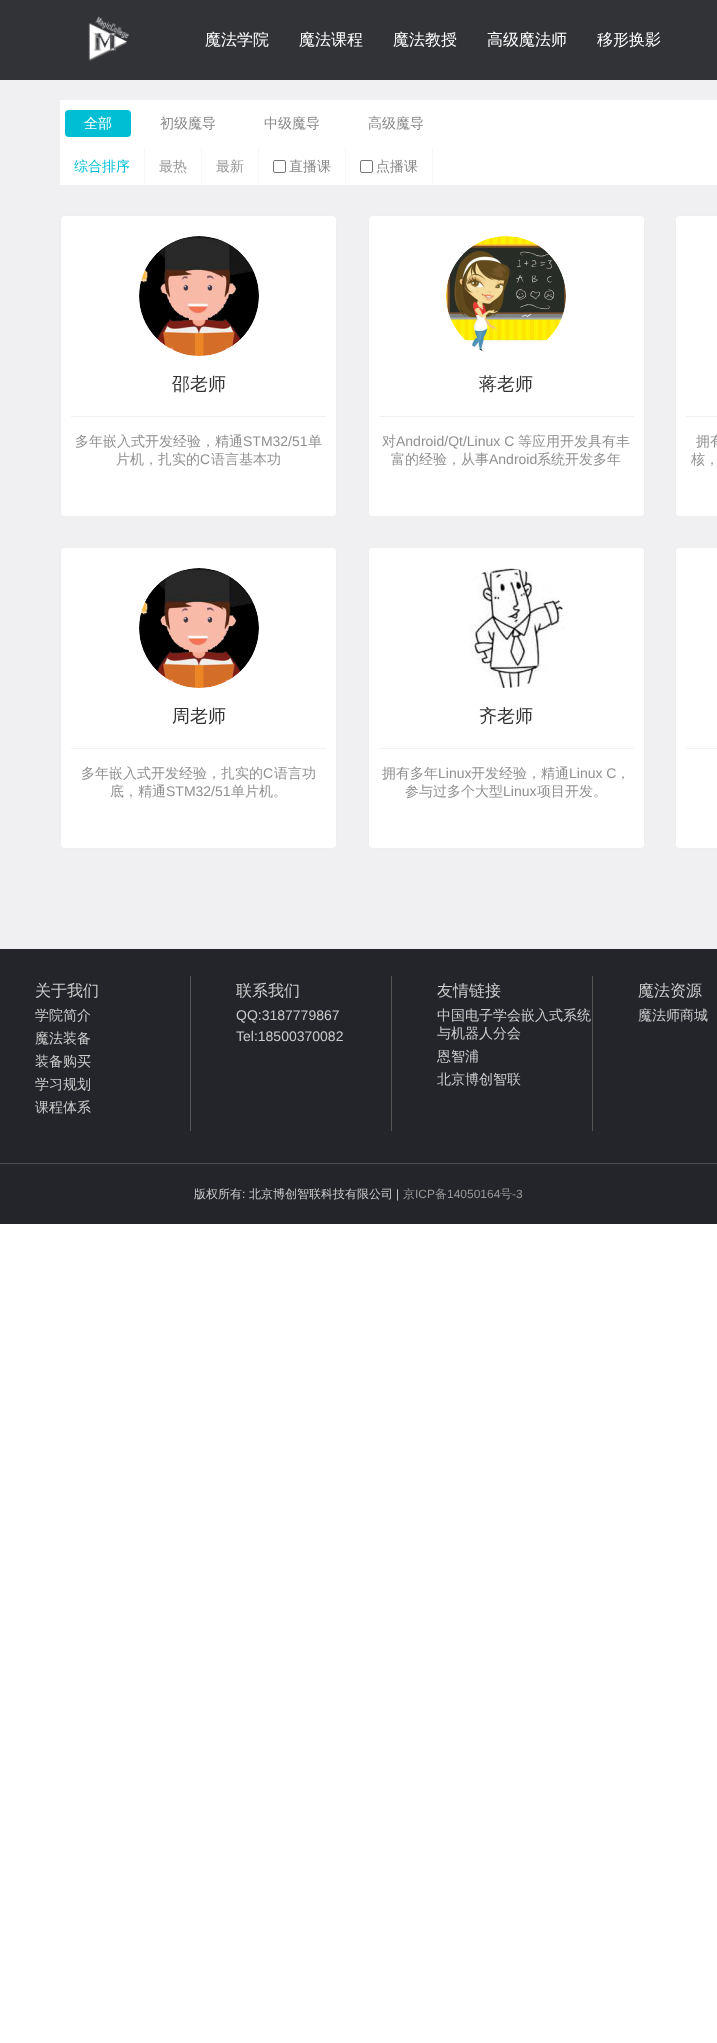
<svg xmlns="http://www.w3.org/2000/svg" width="717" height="2043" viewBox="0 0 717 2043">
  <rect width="100%" height="100%" fill="#ffffff"/>
  <rect x="0" y="0" width="717" height="80" fill="#313336"/>
  <image x="88" y="16" width="41" height="45" href="img1.png"/>
  <text x="205" y="45" font-family="WenQuanYi Zen Hei" font-size="16" font-weight="500" fill="#ffffff">魔法学院</text>
  <text x="299" y="45" font-family="WenQuanYi Zen Hei" font-size="16" font-weight="500" fill="#ffffff">魔法课程</text>
  <text x="393" y="45" font-family="WenQuanYi Zen Hei" font-size="16" font-weight="500" fill="#ffffff">魔法教授</text>
  <text x="487" y="45" font-family="WenQuanYi Zen Hei" font-size="16" font-weight="500" fill="#ffffff">高级魔法师</text>
  <text x="597" y="45" font-family="WenQuanYi Zen Hei" font-size="16" font-weight="500" fill="#ffffff">移形换影</text>
  <rect x="0" y="80" width="717" height="869" fill="#f0f0f2"/>
  <rect x="60" y="100" width="657" height="47" fill="#ffffff"/>
  <rect x="65" y="110" width="66" height="27" rx="4" fill="#00bed4"/>
  <text x="84" y="128" font-family="WenQuanYi Zen Hei" font-size="14" font-weight="500" fill="#ffffff">全部</text>
  <text x="160" y="128" font-family="WenQuanYi Zen Hei" font-size="14" font-weight="500" fill="#888888">初级魔导</text>
  <text x="264" y="128" font-family="WenQuanYi Zen Hei" font-size="14" font-weight="500" fill="#888888">中级魔导</text>
  <text x="368" y="128" font-family="WenQuanYi Zen Hei" font-size="14" font-weight="500" fill="#888888">高级魔导</text>
  <rect x="145" y="147" width="572" height="38" fill="#ffffff"/>
  <rect x="60" y="147" width="84" height="38" fill="#ffffff"/>
  <text x="74" y="171" font-family="WenQuanYi Zen Hei" font-size="14" font-weight="500" fill="#00bed4">综合排序</text>
  <rect x="201" y="147" width="1" height="38" fill="#f7f7f7"/>
  <rect x="144" y="147" width="1" height="38" fill="#f7f7f7"/>
  <text x="159" y="171" font-family="WenQuanYi Zen Hei" font-size="14" font-weight="500" fill="#999999">最热</text>
  <rect x="258" y="147" width="1" height="38" fill="#f7f7f7"/>
  <text x="216" y="171" font-family="WenQuanYi Zen Hei" font-size="14" font-weight="500" fill="#999999">最新</text>
  <rect x="345" y="147" width="1" height="38" fill="#f7f7f7"/>
  <rect x="273.5" y="160.5" width="12" height="12" rx="1.5" fill="none" stroke="#767676"/>
  <text x="289" y="171" font-family="WenQuanYi Zen Hei" font-size="14" font-weight="500" fill="#888888">直播课</text>
  <rect x="432" y="147" width="1" height="38" fill="#f7f7f7"/>
  <rect x="360.5" y="160.5" width="12" height="12" rx="1.5" fill="none" stroke="#767676"/>
  <text x="376" y="171" font-family="WenQuanYi Zen Hei" font-size="14" font-weight="500" fill="#888888">点播课</text>
  <rect x="60.5" y="215.5" width="276" height="301" rx="3.5" fill="#ffffff" stroke="#eeeeee"/>
  <image x="139" y="236" width="120" height="120" href="img2.png"/>
  <text x="172" y="390" font-family="WenQuanYi Zen Hei" font-size="18" font-weight="500" fill="#333333">邵老师</text>
  <rect x="71" y="416" width="255" height="1" fill="#f0f3f5"/>
  <text x="75" y="446" font-family="WenQuanYi Zen Hei" font-size="14" font-weight="500" fill="#909090">多年嵌入式开发经验，精通</text>
  <text x="243" y="446" font-family="Liberation Sans" font-size="14" fill="#909090">STM32/51</text>
  <text x="308" y="446" font-family="WenQuanYi Zen Hei" font-size="14" font-weight="500" fill="#909090">单</text>
  <text x="116" y="464" font-family="WenQuanYi Zen Hei" font-size="14" font-weight="500" fill="#909090">片机，扎实的</text>
  <text x="200" y="464" font-family="Liberation Sans" font-size="14" fill="#909090">C</text>
  <text x="211" y="464" font-family="WenQuanYi Zen Hei" font-size="14" font-weight="500" fill="#909090">语言基本功</text>
  <rect x="368.5" y="215.5" width="276" height="301" rx="3.5" fill="#ffffff" stroke="#eeeeee"/>
  <image x="446" y="236" width="120" height="116" href="img3.png"/>
  <text x="479" y="390" font-family="WenQuanYi Zen Hei" font-size="18" font-weight="500" fill="#333333">蒋老师</text>
  <rect x="379" y="416" width="255" height="1" fill="#f0f3f5"/>
  <text x="382" y="446" font-family="WenQuanYi Zen Hei" font-size="14" font-weight="500" fill="#909090">对</text>
  <text x="396" y="446" font-family="Liberation Sans" font-size="14" fill="#909090">Android/Qt/Linux C</text>
  <text x="518" y="446" font-family="WenQuanYi Zen Hei" font-size="14" font-weight="500" fill="#909090">等应用开发具有丰</text>
  <text x="391" y="464" font-family="WenQuanYi Zen Hei" font-size="14" font-weight="500" fill="#909090">富的经验，从事</text>
  <text x="489" y="464" font-family="Liberation Sans" font-size="14" fill="#909090">Android</text>
  <text x="537" y="464" font-family="WenQuanYi Zen Hei" font-size="14" font-weight="500" fill="#909090">系统开发多年</text>
  <rect x="675.5" y="215.5" width="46" height="301" rx="3.5" fill="#ffffff" stroke="#eeeeee"/>
  <rect x="686" y="416" width="31" height="1" fill="#f0f3f5"/>
  <text x="696" y="446" font-family="WenQuanYi Zen Hei" font-size="14" font-weight="500" fill="#909090">拥有</text>
  <text x="691" y="464" font-family="WenQuanYi Zen Hei" font-size="14" font-weight="500" fill="#909090">核，</text>
  <rect x="60.5" y="547.5" width="276" height="301" rx="3.5" fill="#ffffff" stroke="#eeeeee"/>
  <image x="139" y="568" width="120" height="120" href="img4.png"/>
  <text x="172" y="722" font-family="WenQuanYi Zen Hei" font-size="18" font-weight="500" fill="#333333">周老师</text>
  <rect x="71" y="748" width="255" height="1" fill="#f0f3f5"/>
  <text x="81" y="778" font-family="WenQuanYi Zen Hei" font-size="14" font-weight="500" fill="#909090">多年嵌入式开发经验，扎实的</text>
  <text x="263" y="778" font-family="Liberation Sans" font-size="14" fill="#909090">C</text>
  <text x="274" y="778" font-family="WenQuanYi Zen Hei" font-size="14" font-weight="500" fill="#909090">语言功</text>
  <text x="110" y="796" font-family="WenQuanYi Zen Hei" font-size="14" font-weight="500" fill="#909090">底，精通</text>
  <text x="166" y="796" font-family="Liberation Sans" font-size="14" fill="#909090">STM32/51</text>
  <text x="231" y="796" font-family="WenQuanYi Zen Hei" font-size="14" font-weight="500" fill="#909090">单片机。</text>
  <rect x="368.5" y="547.5" width="276" height="301" rx="3.5" fill="#ffffff" stroke="#eeeeee"/>
  <image x="469" y="568" width="96" height="120" href="img5.png"/>
  <text x="479" y="722" font-family="WenQuanYi Zen Hei" font-size="18" font-weight="500" fill="#333333">齐老师</text>
  <rect x="379" y="748" width="255" height="1" fill="#f0f3f5"/>
  <text x="382" y="778" font-family="WenQuanYi Zen Hei" font-size="14" font-weight="500" fill="#909090">拥有多年</text>
  <text x="438" y="778" font-family="Liberation Sans" font-size="14" fill="#909090">Linux</text>
  <text x="471" y="778" font-family="WenQuanYi Zen Hei" font-size="14" font-weight="500" fill="#909090">开发经验，精通</text>
  <text x="569" y="778" font-family="Liberation Sans" font-size="14" fill="#909090">Linux C</text>
  <text x="616" y="778" font-family="WenQuanYi Zen Hei" font-size="14" font-weight="500" fill="#909090">，</text>
  <text x="405" y="796" font-family="WenQuanYi Zen Hei" font-size="14" font-weight="500" fill="#909090">参与过多个大型</text>
  <text x="503" y="796" font-family="Liberation Sans" font-size="14" fill="#909090">Linux</text>
  <text x="537" y="796" font-family="WenQuanYi Zen Hei" font-size="14" font-weight="500" fill="#909090">项目开发。</text>
  <rect x="675.5" y="547.5" width="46" height="301" rx="3.5" fill="#ffffff" stroke="#eeeeee"/>
  <rect x="686" y="748" width="31" height="1" fill="#f0f3f5"/>
  <rect x="0" y="949" width="717" height="275" fill="#24252a"/>
  <rect x="190" y="976" width="1" height="155" fill="#555555"/>
  <text x="35" y="996" font-family="WenQuanYi Zen Hei" font-size="16" font-weight="500" fill="#cccccc">关于我们</text>
  <text x="35" y="1020" font-family="WenQuanYi Zen Hei" font-size="14" font-weight="500" fill="#cccccc">学院简介</text>
  <text x="35" y="1043" font-family="WenQuanYi Zen Hei" font-size="14" font-weight="500" fill="#cccccc">魔法装备</text>
  <text x="35" y="1066" font-family="WenQuanYi Zen Hei" font-size="14" font-weight="500" fill="#cccccc">装备购买</text>
  <text x="35" y="1089" font-family="WenQuanYi Zen Hei" font-size="14" font-weight="500" fill="#cccccc">学习规划</text>
  <text x="35" y="1112" font-family="WenQuanYi Zen Hei" font-size="14" font-weight="500" fill="#cccccc">课程体系</text>
  <rect x="391" y="976" width="1" height="155" fill="#555555"/>
  <text x="236" y="996" font-family="WenQuanYi Zen Hei" font-size="16" font-weight="500" fill="#cccccc">联系我们</text>
  <text x="236" y="1020" font-family="Liberation Sans" font-size="14" fill="#cccccc">QQ:3187779867</text>
  <text x="236" y="1041" font-family="Liberation Sans" font-size="14" fill="#cccccc">Tel:18500370082</text>
  <rect x="592" y="976" width="1" height="155" fill="#555555"/>
  <text x="437" y="996" font-family="WenQuanYi Zen Hei" font-size="16" font-weight="500" fill="#cccccc">友情链接</text>
  <text x="437" y="1020" font-family="WenQuanYi Zen Hei" font-size="14" font-weight="500" fill="#cccccc">中国电子学会嵌入式系统</text>
  <text x="437" y="1038" font-family="WenQuanYi Zen Hei" font-size="14" font-weight="500" fill="#cccccc">与机器人分会</text>
  <text x="437" y="1061" font-family="WenQuanYi Zen Hei" font-size="14" font-weight="500" fill="#cccccc">恩智浦</text>
  <text x="437" y="1084" font-family="WenQuanYi Zen Hei" font-size="14" font-weight="500" fill="#cccccc">北京博创智联</text>
  <text x="638" y="996" font-family="WenQuanYi Zen Hei" font-size="16" font-weight="500" fill="#cccccc">魔法资源</text>
  <text x="638" y="1020" font-family="WenQuanYi Zen Hei" font-size="14" font-weight="500" fill="#cccccc">魔法师商城</text>
  <rect x="0" y="1163" width="717" height="1" fill="#4d4d4d"/>
  <text x="194" y="1198" font-family="WenQuanYi Zen Hei" font-size="12" font-weight="500" fill="#cccccc">版权所有</text>
  <text x="242" y="1198" font-family="Liberation Sans" font-size="12" fill="#cccccc">:</text>
  <text x="249" y="1198" font-family="WenQuanYi Zen Hei" font-size="12" font-weight="500" fill="#cccccc">北京博创智联科技有限公司</text>
  <text x="396" y="1198" font-family="Liberation Sans" font-size="12" fill="#cccccc">|</text>
  <text x="403" y="1198" font-family="WenQuanYi Zen Hei" font-size="12" font-weight="500" fill="#999999">京</text>
  <text x="415" y="1198" font-family="Liberation Sans" font-size="12" fill="#999999">ICP</text>
  <text x="435" y="1198" font-family="WenQuanYi Zen Hei" font-size="12" font-weight="500" fill="#999999">备</text>
  <text x="447" y="1198" font-family="Liberation Sans" font-size="12" fill="#999999">14050164</text>
  <text x="500" y="1198" font-family="WenQuanYi Zen Hei" font-size="12" font-weight="500" fill="#999999">号</text>
  <text x="512" y="1198" font-family="Liberation Sans" font-size="12" fill="#999999">-3</text>
</svg>
